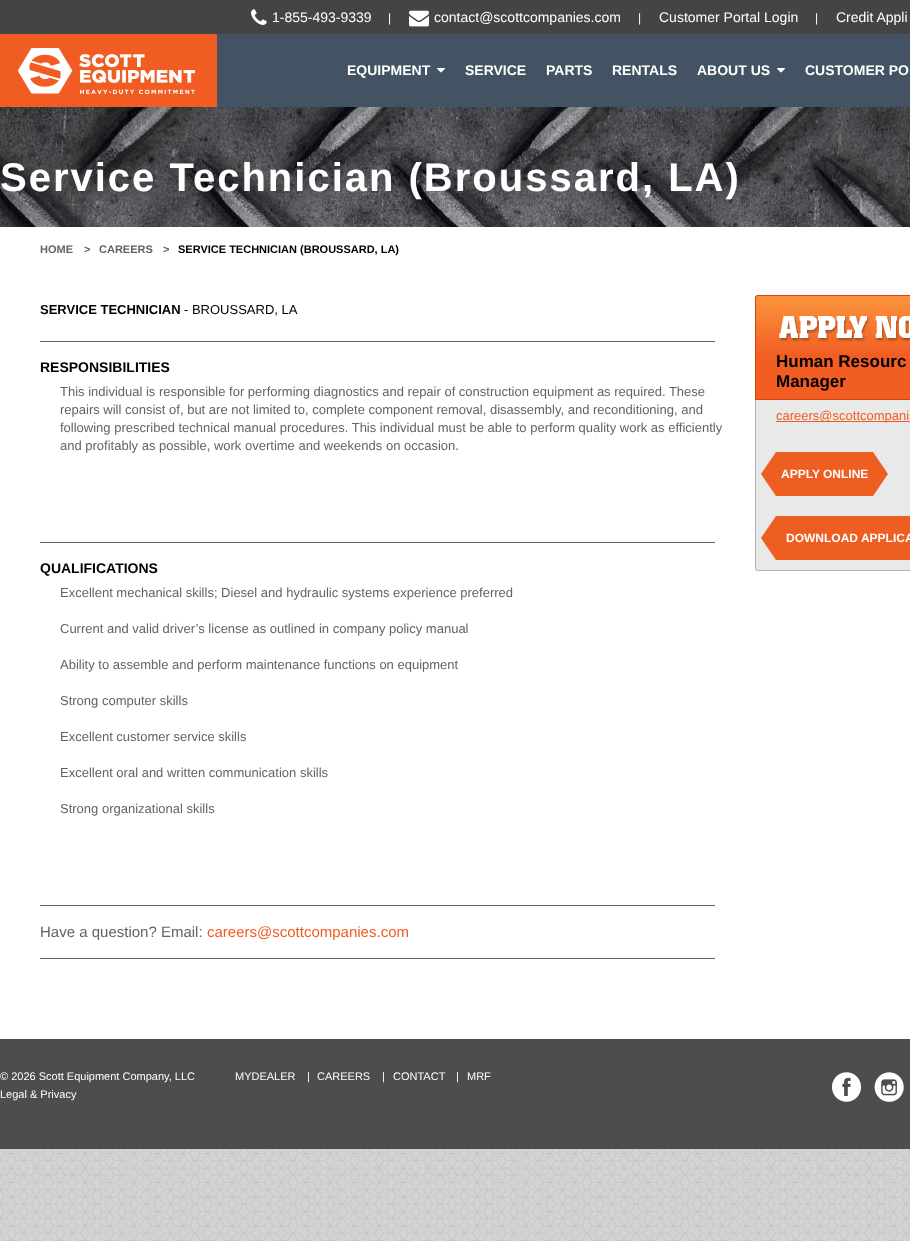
<svg xmlns="http://www.w3.org/2000/svg" width="910" height="1241" viewBox="0 0 910 1241">
  <rect width="100%" height="100%" fill="#ffffff"/>
  <image x="0" y="1149" width="910" height="92" href="img1.png"/>
  <rect x="0" y="0" width="910" height="34" fill="#444444"/>
  <image x="251" y="9" width="16" height="16" href="img2.png"/>
  <text x="272" y="22" font-family="Liberation Sans" font-size="14" fill="#ffffff">1-855-493-9339</text>
  <text x="388" y="22" font-family="Liberation Sans" font-size="12" fill="#ffffff">|</text>
  <image x="409" y="10" width="20" height="17" href="img3.png"/>
  <text x="434" y="22" font-family="Liberation Sans" font-size="14" fill="#ffffff">contact@scottcompanies.com</text>
  <text x="638" y="22" font-family="Liberation Sans" font-size="12" fill="#ffffff">|</text>
  <text x="659" y="22" font-family="Liberation Sans" font-size="14" fill="#ffffff">Customer Portal Login</text>
  <text x="815" y="22" font-family="Liberation Sans" font-size="12" fill="#ffffff">|</text>
  <text x="836" y="22" font-family="Liberation Sans" font-size="14" fill="#ffffff">Credit Appli</text>
  <rect x="217" y="34" width="693" height="73" fill="#435363"/>
  <image x="0" y="34" width="217" height="73" href="img4.png"/>
  <text x="347" y="75" font-family="Liberation Sans" font-size="14" font-weight="bold" fill="#ffffff">EQUIPMENT</text>
  <image x="437" y="68" width="8" height="5" href="img5.png"/>
  <text x="465" y="75" font-family="Liberation Sans" font-size="14" font-weight="bold" fill="#ffffff">SERVICE</text>
  <text x="546" y="75" font-family="Liberation Sans" font-size="14" font-weight="bold" fill="#ffffff">PARTS</text>
  <text x="612" y="75" font-family="Liberation Sans" font-size="14" font-weight="bold" fill="#ffffff">RENTALS</text>
  <text x="697" y="75" font-family="Liberation Sans" font-size="14" font-weight="bold" fill="#ffffff">ABOUT US</text>
  <image x="777" y="68" width="8" height="5" href="img5.png"/>
  <text x="805" y="75" font-family="Liberation Sans" font-size="14" font-weight="bold" fill="#ffffff">CUSTOMER PO</text>
  <image x="0" y="107" width="910" height="120" href="img6.png"/>
  <text x="0" y="191" font-family="Liberation Sans" font-size="40" font-weight="bold" letter-spacing="2" fill="#ffffff">Service Technician (Broussard, LA)</text>
  <text x="40" y="253" font-family="Liberation Sans" font-size="11" font-weight="bold" fill="#636363">HOME</text>
  <text x="84" y="253" font-family="Liberation Sans" font-size="11" font-weight="bold" fill="#636363">&gt;</text>
  <text x="99" y="253" font-family="Liberation Sans" font-size="11" font-weight="bold" fill="#636363">CAREERS</text>
  <text x="163" y="253" font-family="Liberation Sans" font-size="11" font-weight="bold" fill="#636363">&gt;</text>
  <text x="178" y="253" font-family="Liberation Sans" font-size="11" font-weight="bold" fill="#000000">SERVICE TECHNICIAN (BROUSSARD, LA)</text>
  <text x="40" y="314" font-family="Liberation Sans" font-size="13" font-weight="bold" fill="#000000">SERVICE TECHNICIAN</text>
  <text x="184" y="314" font-family="Liberation Sans" font-size="13" fill="#000000">- BROUSSARD, LA</text>
  <rect x="40" y="341" width="675" height="1" fill="#636363"/>
  <text x="40" y="372" font-family="Liberation Sans" font-size="14" font-weight="bold" fill="#000000">RESPONSIBILITIES</text>
  <text x="60" y="396" font-family="Liberation Sans" font-size="13" fill="#636363">This individual is responsible for performing diagnostics and repair of construction equipment as required. These</text>
  <text x="60" y="414" font-family="Liberation Sans" font-size="13" fill="#636363">repairs will consist of, but are not limited to, complete component removal, disassembly, and reconditioning, and</text>
  <text x="60" y="432" font-family="Liberation Sans" font-size="13" fill="#636363">following prescribed technical manual procedures. This individual must be able to perform quality work as efficiently</text>
  <text x="60" y="450" font-family="Liberation Sans" font-size="13" fill="#636363">and profitably as possible, work overtime and weekends on occasion.</text>
  <rect x="40" y="542" width="675" height="1" fill="#636363"/>
  <text x="40" y="573" font-family="Liberation Sans" font-size="14" font-weight="bold" fill="#000000">QUALIFICATIONS</text>
  <text x="60" y="597" font-family="Liberation Sans" font-size="13" fill="#636363">Excellent mechanical skills; Diesel and hydraulic systems experience preferred</text>
  <text x="60" y="633" font-family="Liberation Sans" font-size="13" fill="#636363">Current and valid driver’s license as outlined in company policy manual</text>
  <text x="60" y="669" font-family="Liberation Sans" font-size="13" fill="#636363">Ability to assemble and perform maintenance functions on equipment</text>
  <text x="60" y="705" font-family="Liberation Sans" font-size="13" fill="#636363">Strong computer skills</text>
  <text x="60" y="741" font-family="Liberation Sans" font-size="13" fill="#636363">Excellent customer service skills</text>
  <text x="60" y="777" font-family="Liberation Sans" font-size="13" fill="#636363">Excellent oral and written communication skills</text>
  <text x="60" y="813" font-family="Liberation Sans" font-size="13" fill="#636363">Strong organizational skills</text>
  <rect x="40" y="905" width="675" height="1" fill="#636363"/>
  <text x="40" y="937" font-family="Liberation Sans" font-size="15" fill="#636363">Have a question? Email:</text>
  <text x="207" y="937" font-family="Liberation Sans" font-size="15" fill="#f15c22">careers@scottcompanies.com</text>
  <rect x="40" y="958" width="675" height="1" fill="#636363"/>
  <path d="M758 295H910C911.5 295 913 296.5 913 298V400H755V298C755 296.5 756.5 295 758 295Z" fill="#f15d23"/>
  <image x="755" y="296" width="155" height="57" href="img7.png"/>
  <path d="M758 295.5H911C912.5 295.5 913.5 296.5 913.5 298V399.5H755.5V298C755.5 296.5 756.5 295.5 758 295.5Z" fill="none" stroke="#da4309"/>
  <image x="778" y="316" width="132" height="26" href="img8.png"/>
  <text x="776" y="367" font-family="Liberation Sans" font-size="17" font-weight="bold" fill="#000000">Human Resourc</text>
  <text x="776" y="387" font-family="Liberation Sans" font-size="17" font-weight="bold" fill="#000000">Manager</text>
  <path d="M755 400H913V568C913 569.5 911.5 571 910 571H758C756.5 571 755 569.5 755 568Z" fill="#eae9e9"/>
  <path d="M756 400H755V568C755 570 756 571 758 571H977C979 571 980 570 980 568V400H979V568C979 569 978 570 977 570H758C757 570 756 569 756 568Z" fill="#b4b4b4"/>
  <rect x="776" y="421" width="134" height="1" fill="#f15c22"/>
  <text x="776" y="420" font-family="Liberation Sans" font-size="13" fill="#f15c22">careers@scottcompani</text>
  <rect x="776" y="452" width="97" height="44" fill="#ee5d22"/>
  <path d="M776 452V496L761 474Z" fill="#ee5d22"/>
  <text x="781" y="478" font-family="Liberation Sans" font-size="12" font-weight="bold" fill="#ffffff">APPLY ONLINE</text>
  <path d="M873 496V452L888 474Z" fill="#ee5d22"/>
  <rect x="776" y="516" width="134" height="44" fill="#ee5d22"/>
  <path d="M776 516V560L761 538Z" fill="#ee5d22"/>
  <text x="786" y="542" font-family="Liberation Sans" font-size="12" font-weight="bold" fill="#ffffff">DOWNLOAD APPLICA</text>
  <rect x="0" y="1039" width="910" height="110" fill="#4d4d4d"/>
  <text x="0" y="1080" font-family="Liberation Sans" font-size="11" fill="#ffffff">© 2026 Scott Equipment Company, LLC</text>
  <text x="0" y="1098" font-family="Liberation Sans" font-size="11" fill="#ffffff">Legal &amp; Privacy</text>
  <text x="235" y="1080" font-family="Liberation Sans" font-size="11" fill="#ffffff">MYDEALER</text>
  <text x="307" y="1080" font-family="Liberation Sans" font-size="11" fill="#ffffff">|</text>
  <text x="317" y="1080" font-family="Liberation Sans" font-size="11" fill="#ffffff">CAREERS</text>
  <text x="382" y="1080" font-family="Liberation Sans" font-size="11" fill="#ffffff">|</text>
  <text x="393" y="1080" font-family="Liberation Sans" font-size="11" fill="#ffffff">CONTACT</text>
  <text x="456" y="1080" font-family="Liberation Sans" font-size="11" fill="#ffffff">|</text>
  <text x="467" y="1080" font-family="Liberation Sans" font-size="11" fill="#ffffff">MRF</text>
  <image x="832" y="1072" width="29" height="30" href="img9.png"/>
  <image x="874" y="1072" width="30" height="30" href="img10.png"/>
</svg>
